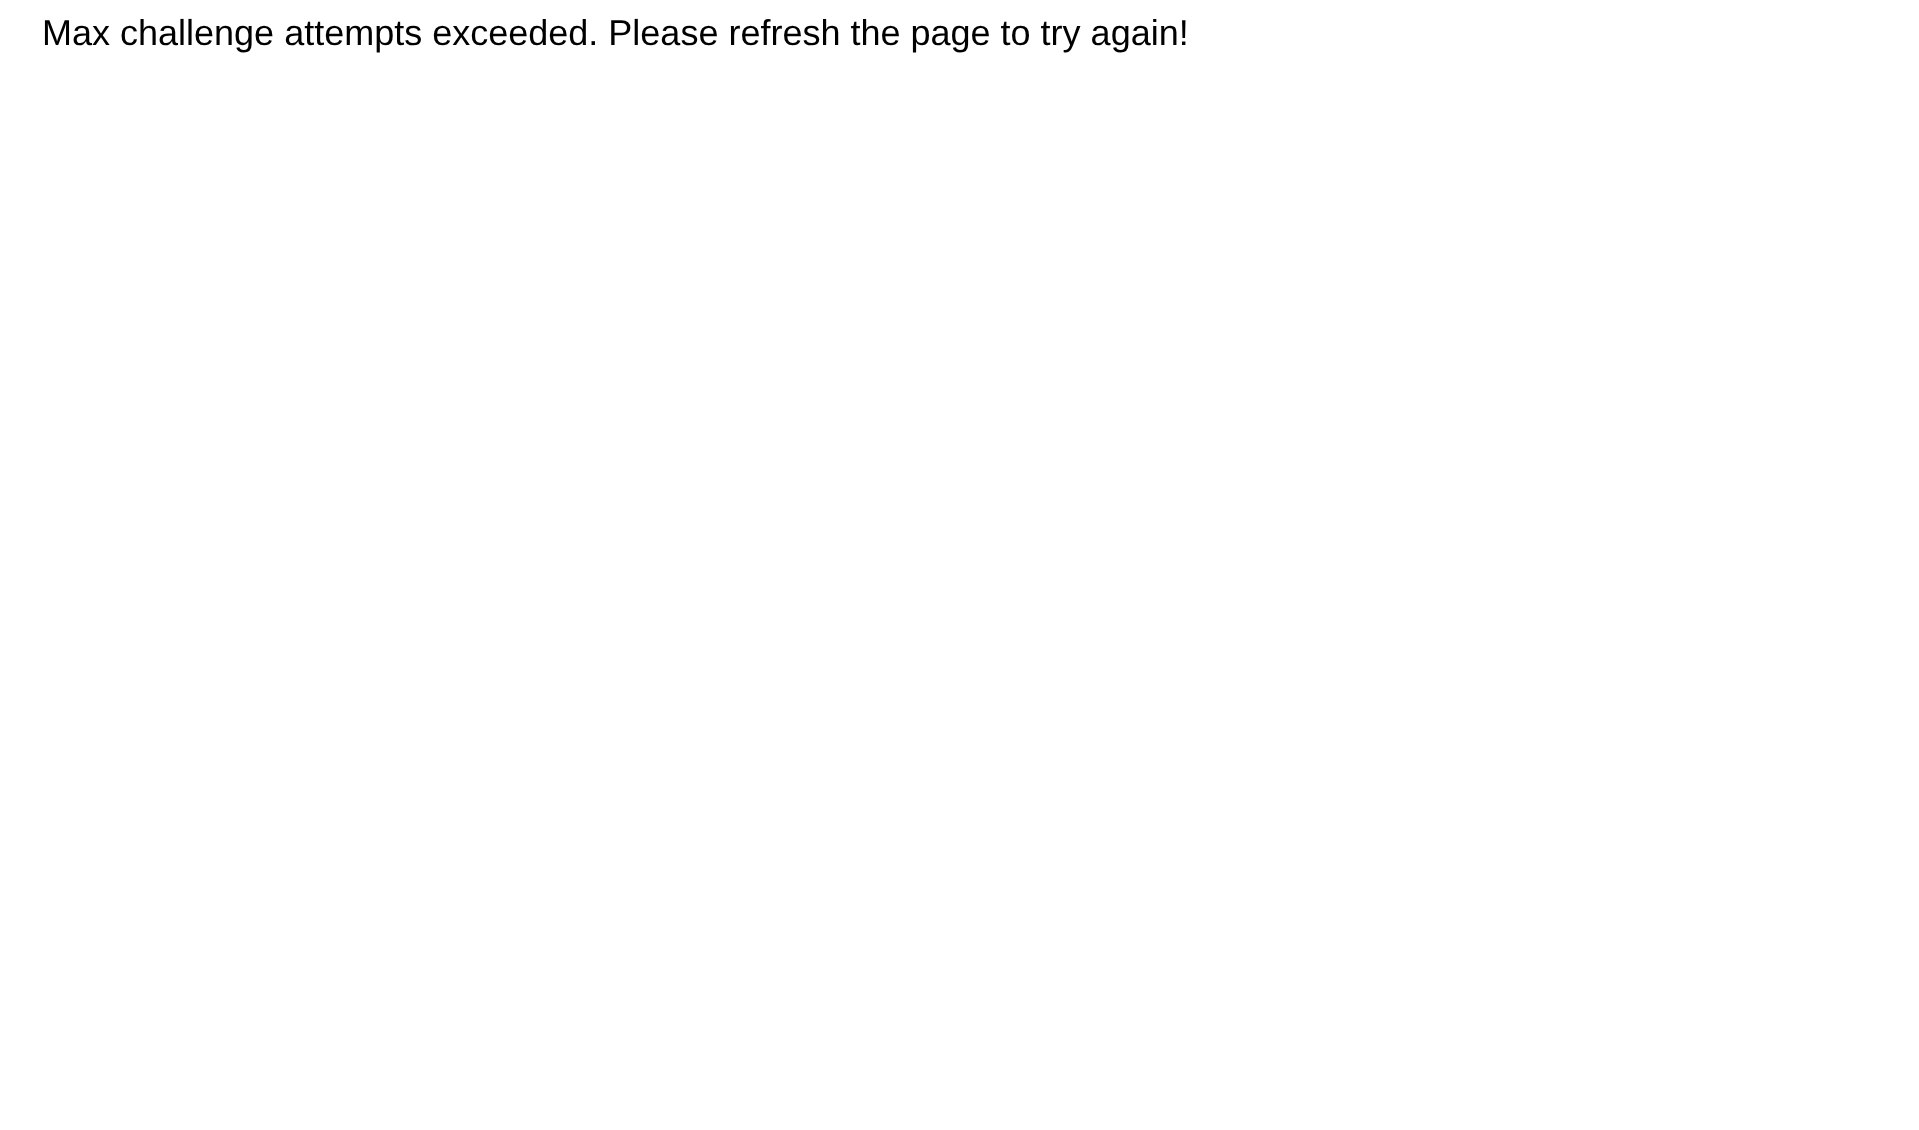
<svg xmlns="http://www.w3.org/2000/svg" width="1919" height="1130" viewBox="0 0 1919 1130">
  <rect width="100%" height="100%" fill="#ffffff"/>
  <text x="42" y="45" font-family="Liberation Sans" font-size="36" fill="#000000">Max challenge attempts exceeded. Please refresh the page to try again!</text>
</svg>
